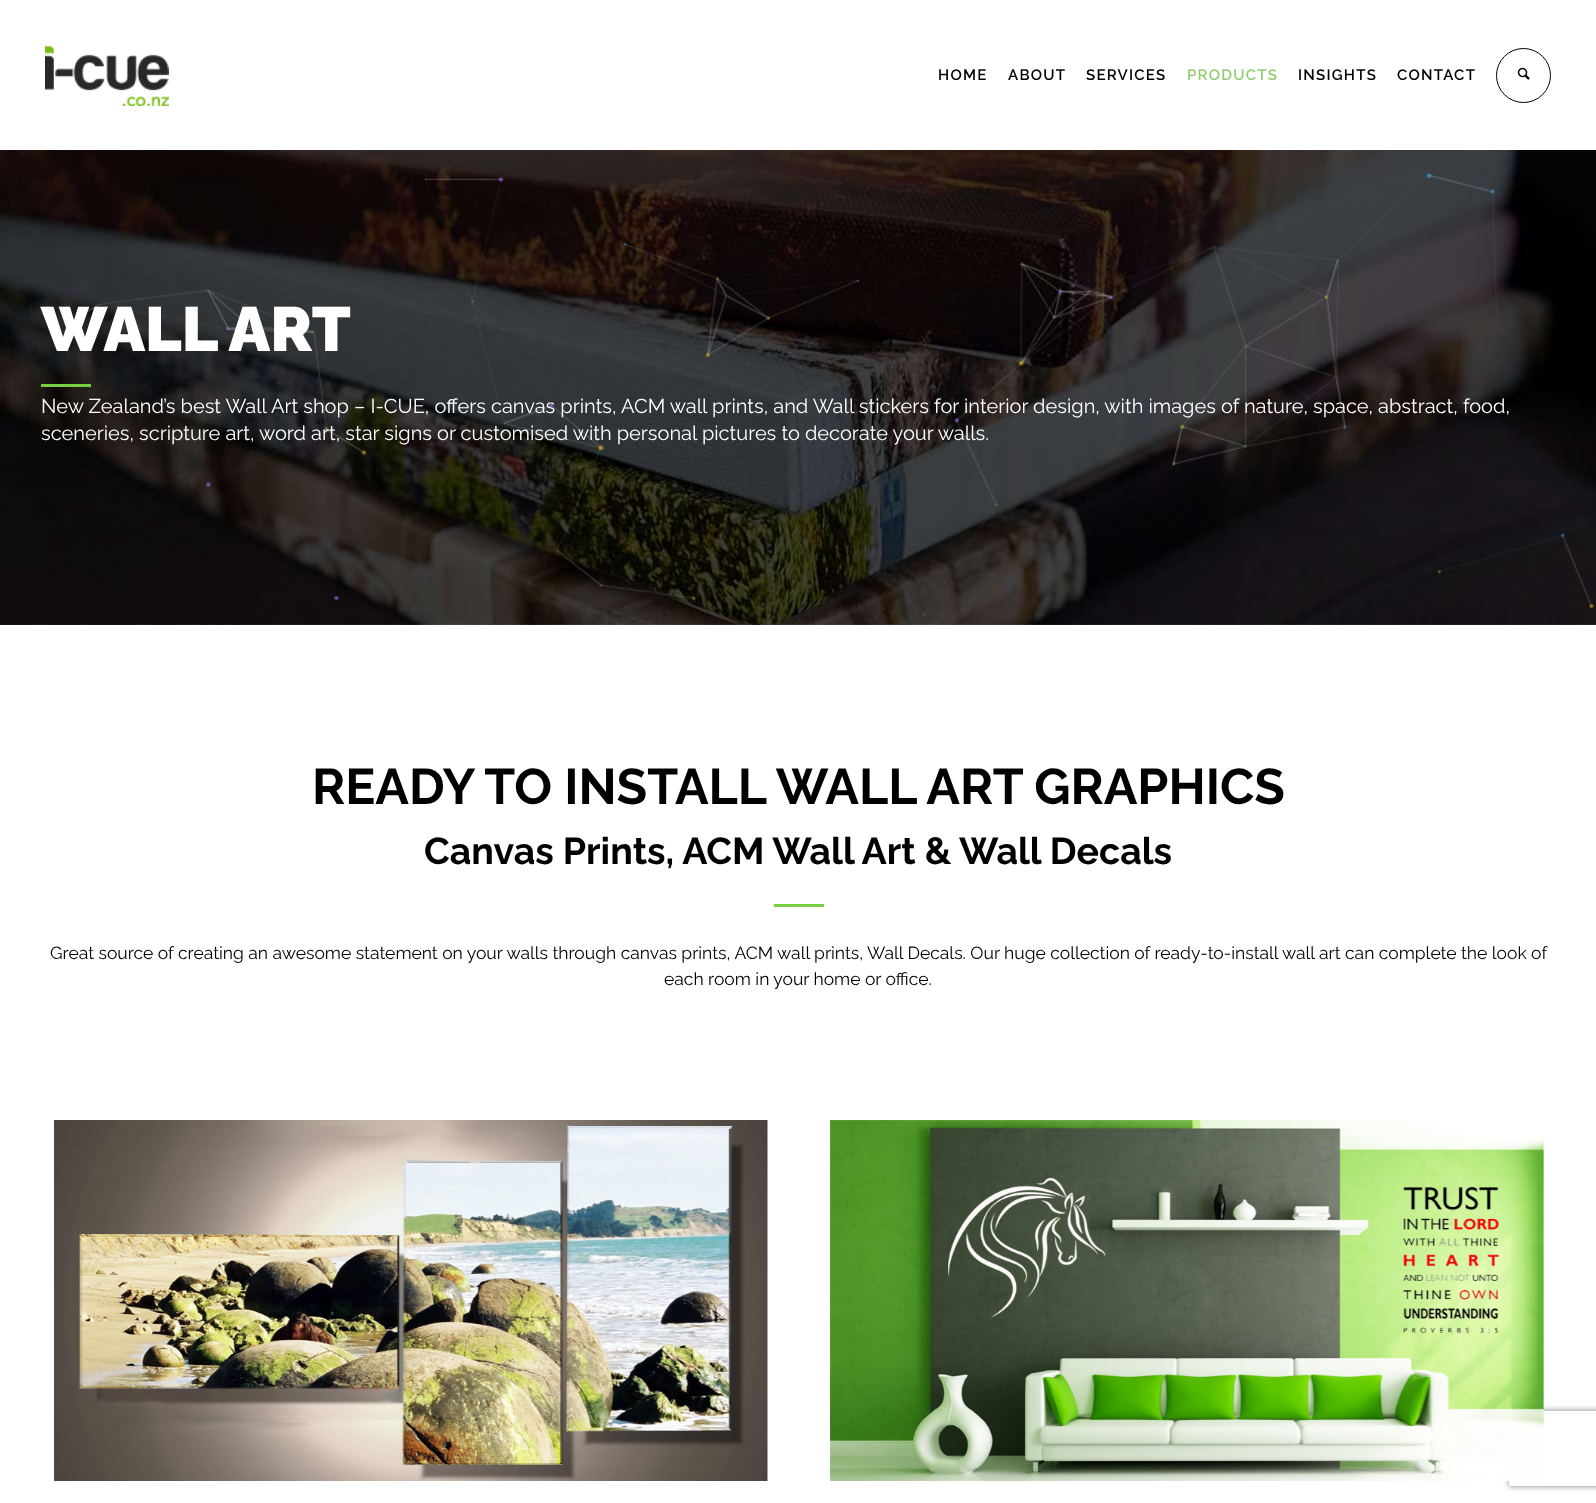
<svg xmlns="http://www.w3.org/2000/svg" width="1596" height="1503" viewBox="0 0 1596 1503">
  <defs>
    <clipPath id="clip1"><path d="M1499 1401H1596V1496H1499ZM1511.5 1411H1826.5C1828 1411 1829 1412 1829 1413.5V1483.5C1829 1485 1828 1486 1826.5 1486H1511.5C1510 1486 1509 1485 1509 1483.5V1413.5C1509 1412 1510 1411 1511.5 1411Z" clip-rule="evenodd"/></clipPath>
    <filter id="blur1" x="-50%" y="-200%" width="200%" height="500%"><feGaussianBlur stdDeviation="3"/></filter>
  </defs>
  <rect width="100%" height="100%" fill="#ffffff"/>
  <image x="45" y="46" width="124" height="60" href="img1.png"/>
  <text x="938" y="80" font-family="Raleway" font-size="15" font-weight="600" letter-spacing="1.25" fill="#000000">HOME</text>
  <text x="1008" y="80" font-family="Raleway" font-size="15" font-weight="600" letter-spacing="1.25" fill="#000000">ABOUT</text>
  <text x="1086" y="80" font-family="Raleway" font-size="15" font-weight="600" letter-spacing="1.25" fill="#000000">SERVICES</text>
  <text x="1187" y="80" font-family="Raleway" font-size="15" font-weight="600" letter-spacing="1.25" fill="#91cd71">PRODUCTS</text>
  <text x="1298" y="80" font-family="Raleway" font-size="15" font-weight="600" letter-spacing="1.25" fill="#000000">INSIGHTS</text>
  <text x="1397" y="80" font-family="Raleway" font-size="15" font-weight="600" letter-spacing="1.25" fill="#000000">CONTACT</text>
  <circle cx="1523.5" cy="75.5" r="27" fill="none" stroke="#000000"/>
  <image x="1517" y="67" width="13" height="13" href="img2.png"/>
  <image x="0" y="150" width="1596" height="475" href="img3.png"/>
  <image x="68" y="172" width="1526" height="445" href="img4.png"/>
  <text x="41" y="351" font-family="Raleway" font-size="62.5" font-weight="900" fill="#ffffff">WALL ART</text>
  <rect x="41" y="384" width="50" height="3" fill="#76ce40"/>
  <text x="41" y="413" font-family="Raleway" font-size="20" fill="#ffffff">New Zealand’s best Wall Art shop – I-CUE, offers canvas prints, ACM wall prints, and Wall stickers for interior design, with images of nature, space, abstract, food,</text>
  <text x="41" y="440" font-family="Raleway" font-size="20" fill="#ffffff">sceneries, scripture art, word art, star signs or customised with personal pictures to decorate your walls.</text>
  <text x="312" y="804" font-family="Raleway" font-size="50" font-weight="bold" fill="#000000">READY TO INSTALL WALL ART GRAPHICS</text>
  <text x="424" y="864" font-family="Raleway" font-size="37.5" font-weight="bold" fill="#000000">Canvas Prints, ACM Wall Art &amp; Wall Decals</text>
  <rect x="774" y="904" width="50" height="3" fill="#76ce40"/>
  <text x="50" y="959" font-family="Raleway" font-size="17.5" fill="#000000">Great source of creating an awesome statement on your walls through canvas prints, ACM wall prints, Wall Decals. Our huge collection of ready-to-install wall art can complete the look of</text>
  <text x="664" y="985" font-family="Raleway" font-size="17.5" fill="#000000">each room in your home or office.</text>
  <image x="54" y="1120" width="714" height="361" href="img5.png"/>
  <g clip-path="url(#clip1)">
    <rect x="1509" y="1411" width="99" height="75" rx="2.5" fill="#808080" filter="url(#blur1)"/>
  </g>
  <image x="830" y="1120" width="714" height="361" href="img6.png"/>
</svg>
